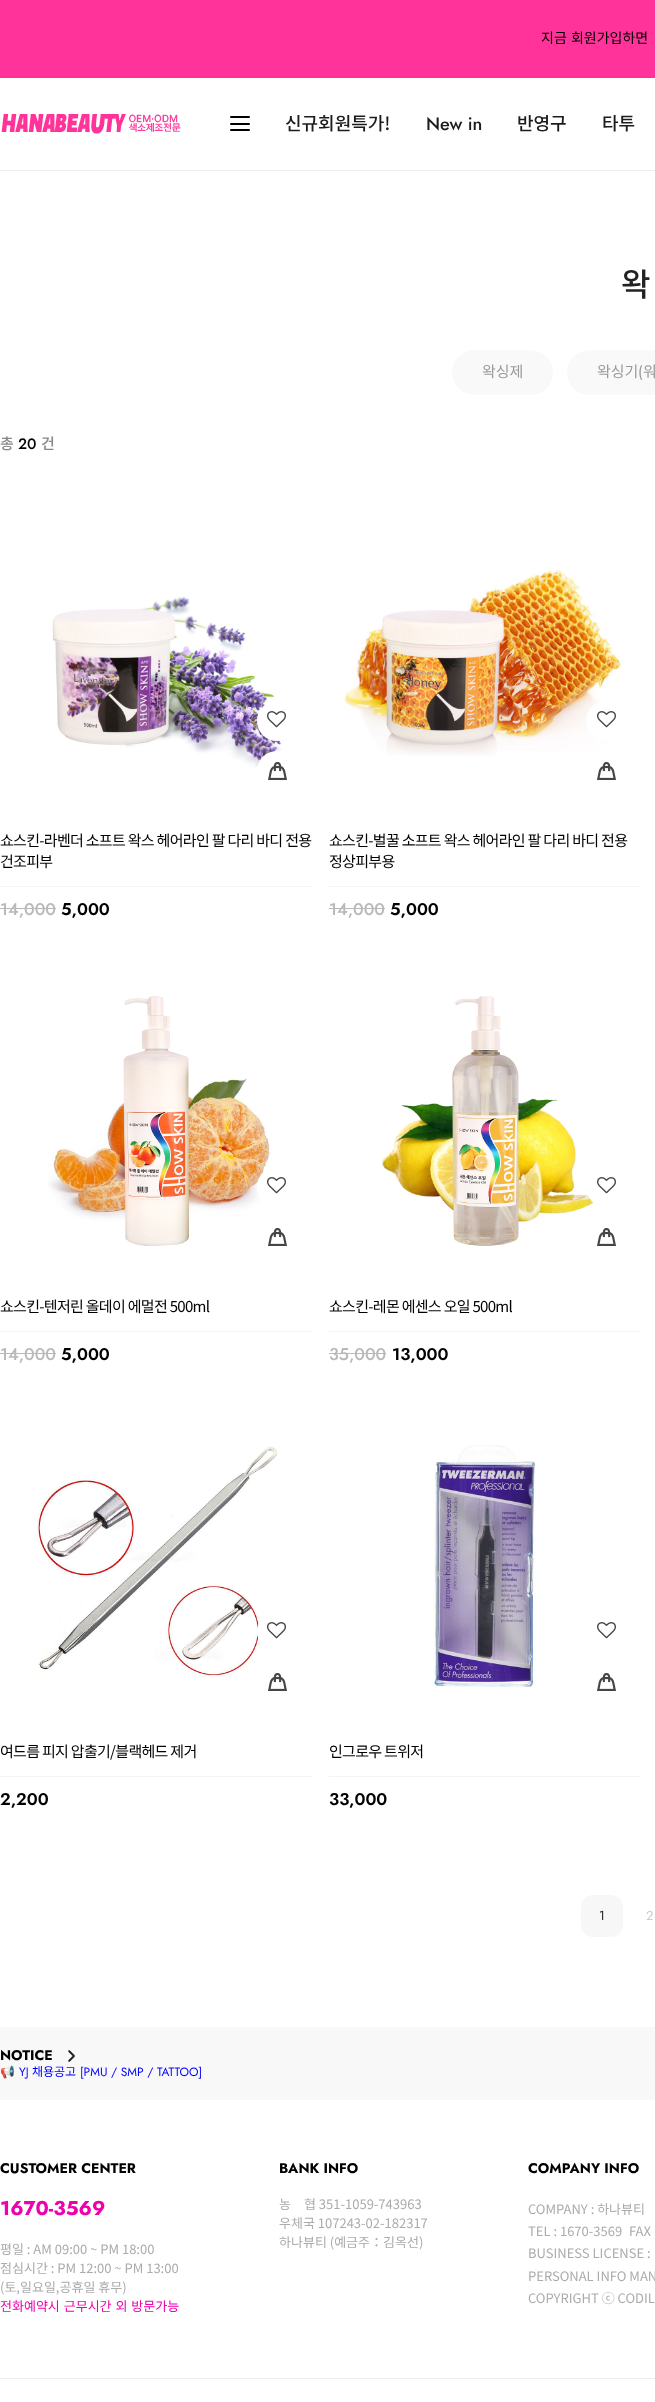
<svg xmlns="http://www.w3.org/2000/svg" width="655" height="2402" viewBox="0 0 655 2402">
  <rect width="100%" height="100%" fill="#ffffff"/>
  <rect x="0" y="170" width="655" height="1" fill="#eeeeee"/>
  <rect x="0" y="0" width="655" height="78" fill="#ff3399"/>
  <text x="541" y="43" word-spacing="1" font-family="Noto Sans KR" font-size="14" fill="#000000">지금 회원가입하면</text>
  <image x="1" y="113" width="180" height="21" href="img1.png"/>
  <rect x="230" y="116" width="20" height="2" rx="1" fill="#000000"/>
  <rect x="230" y="123" width="20" height="2" rx="1" fill="#000000"/>
  <rect x="230" y="129" width="20" height="2" rx="1" fill="#000000"/>
  <text x="285" y="130" font-family="Noto Sans KR" font-size="18" font-weight="500" fill="#1c1c1c">신규회원특가!</text>
  <text x="426" y="130" font-family="Jost" font-size="18" font-weight="500" fill="#1c1c1c">New in</text>
  <text x="517" y="130" font-family="Noto Sans KR" font-size="18" font-weight="500" fill="#1c1c1c">반영구</text>
  <text x="602" y="130" font-family="Noto Sans KR" font-size="18" font-weight="500" fill="#1c1c1c">타투</text>
  <text x="621" y="296" font-family="Noto Sans KR" font-size="32" font-weight="500" fill="#222222">왁</text>
  <rect x="452" y="350" width="101" height="45" rx="22.5" fill="#f9f9f9"/>
  <text x="482" y="377" font-family="Noto Sans KR" font-size="15" fill="#999999">왁싱제</text>
  <rect x="567" y="350" width="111" height="45" rx="22.5" fill="#f9f9f9"/>
  <text x="597" y="377" font-family="Noto Sans KR" font-size="15" fill="#999999">왁싱기</text>
  <text x="638" y="377" font-family="Jost" font-size="15" fill="#999999">(</text>
  <text x="643" y="377" font-family="Noto Sans KR" font-size="15" fill="#999999">워</text>
  <text x="0" y="449" font-family="Noto Sans KR" font-size="15" font-weight="500" fill="#888888">총</text>
  <text x="18" y="449" font-family="Jost" font-size="15" font-weight="500" fill="#000000">20</text>
  <text x="41" y="449" font-family="Noto Sans KR" font-size="15" font-weight="500" fill="#888888">건</text>
  <image x="52" y="596" width="234" height="174" href="img2.png"/>
  <circle cx="277" cy="721" r="20" fill="#ffffff"/>
  <image x="267" y="711" width="19" height="17" href="img3.png"/>
  <circle cx="277" cy="771" r="20" fill="#ffffff"/>
  <image x="268" y="762" width="19" height="18" href="img4.png"/>
  <text x="0" y="846" font-family="Noto Sans KR" font-size="15" letter-spacing="-0.7" fill="#000000">쇼스킨-라벤더 소프트 왁스 헤어라인 팔 다리 바디 전용</text>
  <text x="0" y="867" font-family="Noto Sans KR" font-size="15" letter-spacing="-0.7" fill="#000000">건조피부</text>
  <rect x="0" y="886" width="312" height="1" fill="#f3f3f3"/>
  <text x="0" y="915" font-family="Jost" font-size="17" font-weight="500" fill="#b9b9b9">14,000</text>
  <rect x="0" y="908" width="56" height="1" fill="#b9b9b9"/>
  <text x="61" y="915" font-family="Jost" font-size="17" font-weight="600" fill="#000000">5,000</text>
  <image x="344" y="568" width="280" height="188" href="img5.png"/>
  <circle cx="606" cy="721" r="20" fill="#ffffff"/>
  <image x="597" y="711" width="19" height="17" href="img3.png"/>
  <image x="597" y="762" width="19" height="18" href="img4.png"/>
  <text x="329" y="846" font-family="Noto Sans KR" font-size="15" letter-spacing="-0.7" fill="#000000">쇼스킨-벌꿀 소프트 왁스 헤어라인 팔 다리 바디 전용</text>
  <text x="329" y="867" font-family="Noto Sans KR" font-size="15" letter-spacing="-0.7" fill="#000000">정상피부용</text>
  <rect x="329" y="886" width="312" height="1" fill="#f3f3f3"/>
  <text x="329" y="915" font-family="Jost" font-size="17" font-weight="500" fill="#b9b9b9">14,000</text>
  <rect x="329" y="908" width="56" height="1" fill="#b9b9b9"/>
  <text x="390" y="915" font-family="Jost" font-size="17" font-weight="600" fill="#000000">5,000</text>
  <image x="48" y="996" width="222" height="250" href="img6.png"/>
  <circle cx="277" cy="1187" r="20" fill="#ffffff"/>
  <image x="267" y="1177" width="19" height="17" href="img3.png"/>
  <image x="268" y="1228" width="19" height="18" href="img4.png"/>
  <text x="0" y="1312" font-family="Noto Sans KR" font-size="15" letter-spacing="-0.7" fill="#000000">쇼스킨-텐저린 올데이 에멀전 500ml</text>
  <rect x="0" y="1331" width="312" height="1" fill="#f3f3f3"/>
  <text x="0" y="1360" font-family="Jost" font-size="17" font-weight="500" fill="#b9b9b9">14,000</text>
  <rect x="0" y="1353" width="56" height="1" fill="#b9b9b9"/>
  <text x="61" y="1360" font-family="Jost" font-size="17" font-weight="600" fill="#000000">5,000</text>
  <image x="382" y="996" width="211" height="250" href="img7.png"/>
  <circle cx="606" cy="1187" r="20" fill="#ffffff"/>
  <image x="597" y="1177" width="19" height="17" href="img3.png"/>
  <image x="597" y="1228" width="19" height="18" href="img4.png"/>
  <text x="329" y="1312" font-family="Noto Sans KR" font-size="15" letter-spacing="-0.7" fill="#000000">쇼스킨-레몬 에센스 오일 500ml</text>
  <rect x="329" y="1331" width="312" height="1" fill="#f3f3f3"/>
  <text x="329" y="1360" font-family="Jost" font-size="17" font-weight="500" fill="#b9b9b9">35,000</text>
  <rect x="329" y="1353" width="57" height="1" fill="#b9b9b9"/>
  <text x="392" y="1360" font-family="Jost" font-size="17" font-weight="600" fill="#000000">13,000</text>
  <image x="37" y="1446" width="242" height="231" href="img8.png"/>
  <circle cx="277" cy="1632" r="20" fill="#ffffff"/>
  <image x="267" y="1622" width="19" height="17" href="img3.png"/>
  <image x="268" y="1673" width="19" height="18" href="img4.png"/>
  <text x="0" y="1757" font-family="Noto Sans KR" font-size="15" letter-spacing="-0.7" fill="#000000">여드름 피지 압출기/블랙헤드 제거</text>
  <rect x="0" y="1776" width="312" height="1" fill="#f3f3f3"/>
  <text x="0" y="1805" font-family="Jost" font-size="17" font-weight="600" fill="#000000">2,200</text>
  <image x="433" y="1445" width="103" height="244" href="img9.png"/>
  <image x="597" y="1622" width="19" height="17" href="img3.png"/>
  <image x="597" y="1673" width="19" height="18" href="img4.png"/>
  <text x="329" y="1757" font-family="Noto Sans KR" font-size="15" letter-spacing="-0.7" fill="#000000">인그로우 트위저</text>
  <rect x="329" y="1776" width="312" height="1" fill="#f3f3f3"/>
  <text x="329" y="1805" font-family="Jost" font-size="17" font-weight="600" fill="#000000">33,000</text>
  <rect x="581" y="1895" width="42" height="42" rx="12" fill="#f7f7f7"/>
  <text x="599" y="1920" font-family="Jost" font-size="13" fill="#222222">1</text>
  <text x="646" y="1920" font-family="Jost" font-size="13" fill="#cccccc">2</text>
  <rect x="0" y="2027" width="655" height="73" fill="#f8f8f8"/>
  <text x="0" y="2060" font-family="Jost" font-size="14" font-weight="bold" fill="#000000">NOTICE</text>
  <image x="68" y="2050" width="7" height="12" href="img10.png"/>
  <text x="0" y="2076" font-family="Noto Color Emoji" font-size="12" fill="#0000ff">📢</text>
  <text x="19" y="2076" font-family="Jost" font-size="12" fill="#0000ff">YJ</text>
  <text x="32" y="2076" font-family="Noto Sans KR" font-size="12" fill="#0000ff">채용공고</text>
  <text x="80" y="2076" font-family="Jost" font-size="12" fill="#0000ff">[PMU / SMP / TATTOO]</text>
  <text x="0" y="2173" font-family="Jost" font-size="14" font-weight="bold" fill="#000000">CUSTOMER CENTER</text>
  <text x="0" y="2215" font-family="Jost" font-size="20" font-weight="bold" fill="#ef00ae">1670-3569</text>
  <text x="0" y="2254" font-family="Noto Sans KR" font-size="13" fill="#ababab">평일 : AM 09:00 ~ PM 18:00</text>
  <text x="0" y="2273" font-family="Noto Sans KR" font-size="13" fill="#ababab">점심시간 : PM 12:00 ~ PM 13:00</text>
  <text x="0" y="2292" font-family="Noto Sans KR" font-size="13" fill="#ababab">(토,일요일,공휴일 휴무)</text>
  <text x="0" y="2311" word-spacing="1" font-family="Noto Sans KR" font-size="13" fill="#ef00ae">전화예약시 근무시간 외 방문가능</text>
  <text x="279" y="2173" font-family="Jost" font-size="14" font-weight="bold" fill="#000000">BANK INFO</text>
  <text x="279" y="2209" font-family="Noto Sans KR" font-size="13" fill="#ababab">농　협 351-1059-743963</text>
  <text x="279" y="2228" font-family="Noto Sans KR" font-size="13" fill="#ababab">우체국 107243-02-182317</text>
  <text x="279" y="2247" font-family="Noto Sans KR" font-size="13" fill="#ababab">하나뷰티 (예금주：김옥선)</text>
  <text x="528" y="2173" font-family="Jost" font-size="14" font-weight="bold" fill="#000000">COMPANY INFO</text>
  <text x="528" y="2214" font-family="Noto Sans KR" font-size="13" fill="#ababab">COMPANY : 하나뷰티</text>
  <text x="528" y="2236" font-family="Noto Sans KR" font-size="13" fill="#ababab">TEL : 1670-3569</text>
  <text x="629" y="2236" font-family="Noto Sans KR" font-size="13" fill="#ababab">FAX</text>
  <text x="528" y="2258" font-family="Noto Sans KR" font-size="13" fill="#ababab">BUSINESS LICENSE :</text>
  <text x="528" y="2281" font-family="Noto Sans KR" font-size="13" fill="#ababab">PERSONAL INFO MAN</text>
  <text x="528" y="2303" font-family="Noto Sans KR" font-size="13" fill="#ababab">COPYRIGHT ⓒ CODIL</text>
  <rect x="0" y="2378" width="655" height="1" fill="#eeeeee"/>
</svg>
